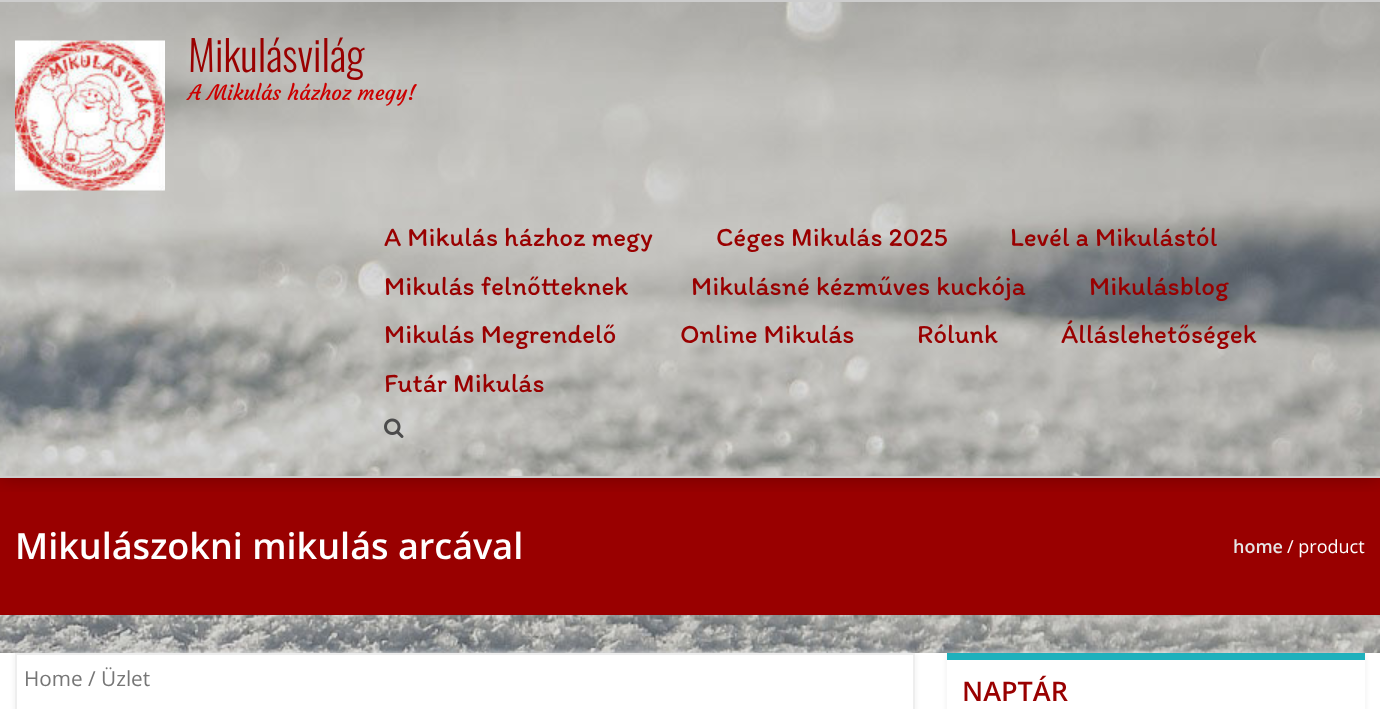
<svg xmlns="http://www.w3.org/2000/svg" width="1380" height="709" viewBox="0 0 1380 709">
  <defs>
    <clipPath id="clip1"><rect x="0" y="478" width="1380" height="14"/></clipPath>
    <filter id="blur1" x="-50%" y="-200%" width="200%" height="500%"><feGaussianBlur stdDeviation="10"/></filter>
    <clipPath id="clip2"><path d="M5 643H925V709H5ZM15 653H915V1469H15Z" clip-rule="evenodd"/></clipPath>
    <filter id="blur2" x="-50%" y="-200%" width="200%" height="500%"><feGaussianBlur stdDeviation="3"/></filter>
    <clipPath id="clip3"><path d="M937 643H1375V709H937ZM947 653H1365V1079H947Z" clip-rule="evenodd"/></clipPath>
  </defs>
  <rect width="100%" height="100%" fill="#ffffff"/>
  <image x="0" y="2" width="1380" height="651" href="img1.png"/>
  <rect x="0" y="478" width="1380" height="137" fill="#990000"/>
  <g clip-path="url(#clip1)">
    <rect x="0" y="0" width="1380" height="477" fill="#000000" fill-opacity="0.3" filter="url(#blur1)"/>
  </g>
  <rect x="0" y="0" width="1380" height="2" fill="#cdcdcd"/>
  <rect x="0" y="476" width="1380" height="2" fill="#cdcdcd"/>
  <image x="15" y="40" width="150" height="151" href="img2.png"/>
  <text x="188" y="72" font-family="Oswald" font-size="42" font-weight="300" fill="#990000">Mikulásvilág</text>
  <text x="188" y="100" font-family="Courgette" font-size="21" fill="#cc0000">A Mikulás házhoz megy!</text>
  <text x="384" y="246" font-family="Itim" font-size="27" fill="#990000">A Mikulás házhoz megy</text>
  <text x="716" y="246" font-family="Itim" font-size="27" fill="#990000">Céges Mikulás 2025</text>
  <text x="1010" y="246" font-family="Itim" font-size="27" fill="#990000">Levél a Mikulástól</text>
  <text x="384" y="295" font-family="Itim" font-size="27" fill="#990000">Mikulás felnőtteknek</text>
  <text x="691" y="295" font-family="Itim" font-size="27" fill="#990000">Mikulásné kézműves kuckója</text>
  <text x="1089" y="295" font-family="Itim" font-size="27" fill="#990000">Mikulásblog</text>
  <text x="384" y="343" font-family="Itim" font-size="27" fill="#990000">Mikulás Megrendelő</text>
  <text x="680" y="343" font-family="Itim" font-size="27" fill="#990000">Online Mikulás</text>
  <text x="917" y="343" font-family="Itim" font-size="27" fill="#990000">Rólunk</text>
  <text x="1061" y="343" font-family="Itim" font-size="27" fill="#990000">Álláslehetőségek</text>
  <text x="384" y="392" font-family="Itim" font-size="27" fill="#990000">Futár Mikulás</text>
  <image x="384" y="418" width="20" height="20" href="img3.png"/>
  <text x="15" y="559" font-family="Open Sans" font-size="36" font-weight="600" fill="#ffffff">Mikulászokni mikulás arcával</text>
  <text x="1233" y="553" font-family="Open Sans" font-size="18" font-weight="600" fill="#e6e6e6">home</text>
  <text x="1287" y="553" font-family="Open Sans" font-size="18" fill="#ffffff">/ product</text>
  <g clip-path="url(#clip2)">
    <rect x="15" y="653" width="900" height="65" fill="#eeeeee" filter="url(#blur2)"/>
  </g>
  <rect x="16" y="654" width="898" height="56" fill="none" stroke="#eeeeee" stroke-width="2"/>
  <text x="24" y="686" font-family="Open Sans" font-size="20.75" fill="#767676">Home / Üzlet</text>
  <g clip-path="url(#clip3)">
    <rect x="947" y="653" width="418" height="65" fill="#eeeeee" filter="url(#blur2)"/>
  </g>
  <rect x="947" y="653" width="418" height="7" fill="#1eb0bc"/>
  <text x="962" y="701" font-family="Open Sans" font-size="27" font-weight="600" fill="#990000">NAPTÁR</text>
</svg>
